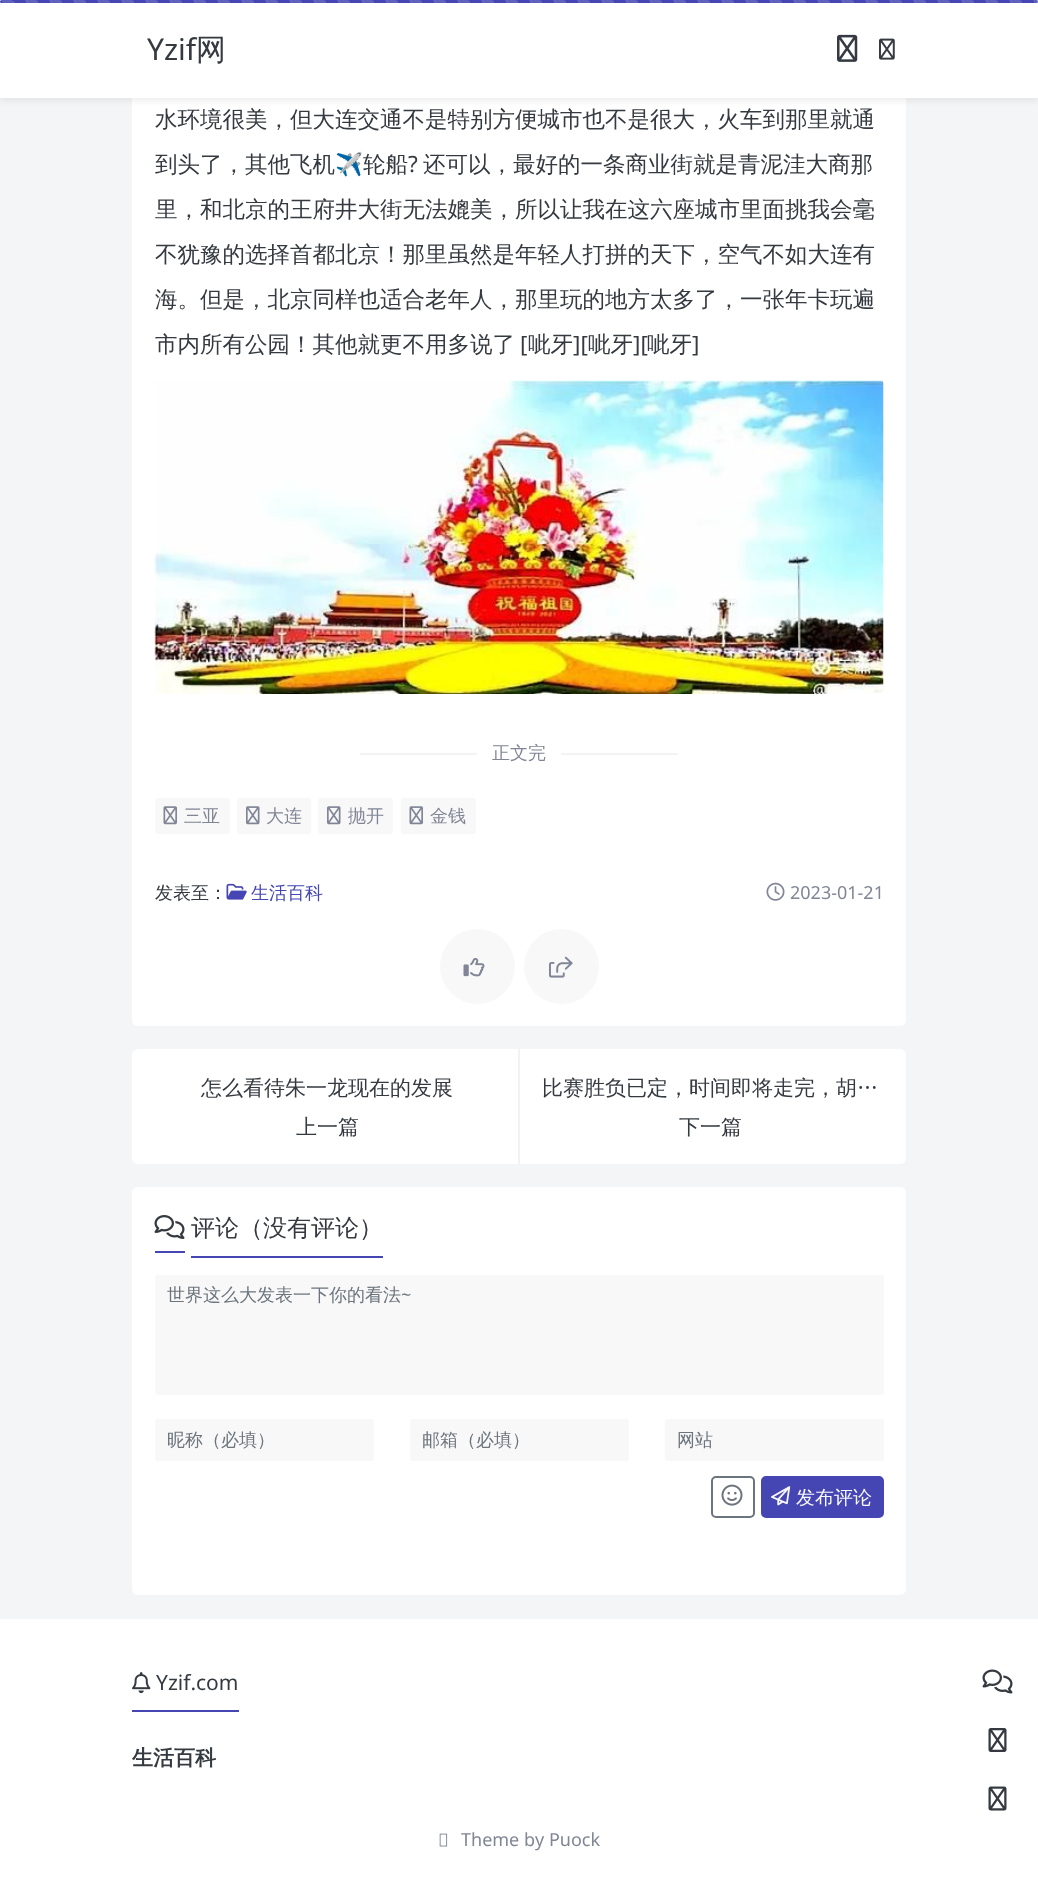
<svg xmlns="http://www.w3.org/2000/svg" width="1038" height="1899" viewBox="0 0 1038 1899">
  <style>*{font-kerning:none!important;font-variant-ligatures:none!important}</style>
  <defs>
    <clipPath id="clip1"><path d="M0 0H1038V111H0ZM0 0H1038V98H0Z" clip-rule="evenodd"/></clipPath>
    <filter id="blur1" x="-50%" y="-200%" width="200%" height="500%"><feGaussianBlur stdDeviation="3"/></filter>
  </defs>
  <rect width="100%" height="100%" fill="#f3f5f7"/>
  <rect x="132" y="-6" width="774" height="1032" rx="6" fill="#ffffff"/>
  <rect x="0" y="0" width="1038" height="98" fill="#ffffff"/>
  <g clip-path="url(#clip1)">
    <rect x="0" y="3" width="1038" height="98" fill="#000000" fill-opacity="0.07" filter="url(#blur1)"/>
  </g>
  <rect x="0" y="0" width="1038" height="3" rx="1.5" fill="#4545b3"/>
  <image x="0" y="0" width="1038" height="3" href="img1.png"/>
  <text x="147" y="60" font-family="Noto Sans" font-size="30" fill="#343a40">Yzif</text>
  <text x="196" y="60" font-family="WenQuanYi Zen Hei" font-size="30" font-weight="500" fill="#343a40">网</text>
  <image x="837" y="34" width="21" height="28" href="img2.png"/>
  <image x="879" y="38" width="16" height="22" href="img3.png"/>
  <text x="155" y="127" font-family="WenQuanYi Zen Hei" font-size="22.5" font-weight="500" fill="#343a40">水环境很美，但大连交通不是特别方便城市也不是很大，火车到那里就通</text>
  <text x="155" y="172" font-family="WenQuanYi Zen Hei" font-size="22.5" font-weight="500" fill="#343a40">到头了，其他飞机</text>
  <text x="335" y="172" font-family="Noto Color Emoji" font-size="22.5" fill="#343a40">✈️</text>
  <text x="363" y="172" font-family="WenQuanYi Zen Hei" font-size="22.5" font-weight="500" fill="#343a40">轮船</text>
  <text x="408" y="172" font-family="Noto Sans" font-size="22.5" fill="#343a40">?</text>
  <text x="423" y="172" font-family="WenQuanYi Zen Hei" font-size="22.5" font-weight="500" fill="#343a40">还可以，最好的一条商业街就是青泥洼大商那</text>
  <text x="155" y="217" font-family="WenQuanYi Zen Hei" font-size="22.5" font-weight="500" fill="#343a40">里，和北京的王府井大街无法媲美，所以让我在这六座城市里面挑我会毫</text>
  <text x="155" y="262" font-family="WenQuanYi Zen Hei" font-size="22.5" font-weight="500" fill="#343a40">不犹豫的选择首都北京！那里虽然是年轻人打拼的天下，空气不如大连有</text>
  <text x="155" y="307" font-family="WenQuanYi Zen Hei" font-size="22.5" font-weight="500" fill="#343a40">海。但是，北京同样也适合老年人，那里玩的地方太多了，一张年卡玩遍</text>
  <text x="155" y="352" font-family="WenQuanYi Zen Hei" font-size="22.5" font-weight="500" fill="#343a40">市内所有公园！其他就更不用多说了</text>
  <text x="520" y="352" font-family="Noto Sans" font-size="22.5" fill="#343a40">[</text>
  <text x="528" y="352" font-family="WenQuanYi Zen Hei" font-size="22.5" font-weight="500" fill="#343a40">呲牙</text>
  <text x="573" y="352" font-family="Noto Sans" font-size="22.5" fill="#343a40">][</text>
  <text x="588" y="352" font-family="WenQuanYi Zen Hei" font-size="22.5" font-weight="500" fill="#343a40">呲牙</text>
  <text x="633" y="352" font-family="Noto Sans" font-size="22.5" fill="#343a40">][</text>
  <text x="647" y="352" font-family="WenQuanYi Zen Hei" font-size="22.5" font-weight="500" fill="#343a40">呲牙</text>
  <text x="692" y="352" font-family="Noto Sans" font-size="22.5" fill="#343a40">]</text>
  <image x="154" y="380" width="730" height="314" href="img4.png"/>
  <rect x="360" y="753" width="117" height="2" fill="#f3f3f3"/>
  <text x="492" y="759" font-family="WenQuanYi Zen Hei" font-size="18" font-weight="500" fill="#808695">正文完</text>
  <rect x="561" y="753" width="117" height="2" fill="#f3f3f3"/>
  <rect x="155" y="798" width="75" height="36" rx="3" fill="#f8f8f9"/>
  <image x="163" y="806" width="14" height="19" href="img5.png"/>
  <text x="184" y="822" font-family="WenQuanYi Zen Hei" font-size="18" font-weight="500" fill="#808695">三亚</text>
  <rect x="237" y="798" width="74" height="36" rx="3" fill="#f8f8f9"/>
  <image x="246" y="806" width="14" height="19" href="img6.png"/>
  <text x="266" y="822" font-family="WenQuanYi Zen Hei" font-size="18" font-weight="500" fill="#808695">大连</text>
  <rect x="318" y="798" width="75" height="36" rx="3" fill="#f8f8f9"/>
  <image x="327" y="806" width="14" height="19" href="img6.png"/>
  <text x="348" y="822" font-family="WenQuanYi Zen Hei" font-size="18" font-weight="500" fill="#808695">抛开</text>
  <rect x="401" y="798" width="75" height="36" rx="3" fill="#f8f8f9"/>
  <image x="409" y="806" width="14" height="19" href="img5.png"/>
  <text x="430" y="822" font-family="WenQuanYi Zen Hei" font-size="18" font-weight="500" fill="#808695">金钱</text>
  <text x="155" y="899" font-family="WenQuanYi Zen Hei" font-size="18" font-weight="500" fill="#343a40">发表至：</text>
  <image x="226" y="883" width="21" height="17" href="img7.png"/>
  <text x="251" y="899" font-family="WenQuanYi Zen Hei" font-size="18" font-weight="500" fill="#4545b3">生活百科</text>
  <image x="766" y="882" width="19" height="19" href="img8.png"/>
  <text x="790" y="899" font-family="Noto Sans" font-size="18" fill="#808695">2023-01-21</text>
  <circle cx="477.5" cy="966.5" r="37.5" fill="#f8f8f9"/>
  <image x="463" y="958" width="22" height="19" href="img9.png"/>
  <circle cx="561.5" cy="966.5" r="37.5" fill="#f8f8f9"/>
  <image x="549" y="956" width="24" height="22" href="img10.png"/>
  <rect x="132" y="1049" width="774" height="115" rx="6" fill="#ffffff"/>
  <rect x="518" y="1049" width="2" height="115" fill="#f3f3f3"/>
  <text x="201" y="1095" font-family="WenQuanYi Zen Hei" font-size="21" font-weight="500" fill="#343a40">怎么看待朱一龙现在的发展</text>
  <text x="296" y="1134" font-family="WenQuanYi Zen Hei" font-size="21" font-weight="500" fill="#343a40">上一篇</text>
  <text x="542" y="1095" font-family="WenQuanYi Zen Hei" font-size="21" font-weight="500" fill="#343a40">比赛胜负已定，时间即将走完，胡…</text>
  <text x="679" y="1134" font-family="WenQuanYi Zen Hei" font-size="21" font-weight="500" fill="#343a40">下一篇</text>
  <rect x="132" y="1187" width="774" height="408" rx="6" fill="#ffffff"/>
  <rect x="155" y="1251" width="30" height="2" fill="#4545b3"/>
  <rect x="191" y="1256" width="192" height="2" fill="#4545b3"/>
  <image x="154" y="1215" width="31" height="24" href="img11.png"/>
  <text x="191" y="1236" font-family="WenQuanYi Zen Hei" font-size="24" font-weight="500" fill="#343a40">评论（没有评论）</text>
  <rect x="155" y="1275" width="729" height="120" rx="3" fill="#f8f8f9"/>
  <text x="167" y="1301" font-family="WenQuanYi Zen Hei" font-size="18" font-weight="500" fill="#6c757d">世界这么大发表一下你的看法</text>
  <text x="401" y="1301" font-family="Noto Sans" font-size="18" fill="#6c757d">~</text>
  <rect x="155" y="1419" width="219" height="42" rx="3" fill="#f8f8f9"/>
  <text x="167" y="1446" font-family="WenQuanYi Zen Hei" font-size="18" font-weight="500" fill="#6c757d">昵称（必填）</text>
  <rect x="410" y="1419" width="219" height="42" rx="3" fill="#f8f8f9"/>
  <text x="422" y="1446" font-family="WenQuanYi Zen Hei" font-size="18" font-weight="500" fill="#6c757d">邮箱（必填）</text>
  <rect x="665" y="1419" width="219" height="42" rx="3" fill="#f8f8f9"/>
  <text x="677" y="1446" font-family="WenQuanYi Zen Hei" font-size="18" font-weight="500" fill="#6c757d">网站</text>
  <rect x="712" y="1477" width="42" height="40" rx="4" fill="none" stroke="#6c757d" stroke-width="2"/>
  <image x="721" y="1484" width="22" height="22" href="img12.png"/>
  <rect x="762" y="1477" width="121" height="40" rx="4" fill="#4545b3" stroke="#4545b3" stroke-width="2"/>
  <image x="771" y="1486" width="20" height="20" href="img13.png"/>
  <text x="796" y="1504" font-family="WenQuanYi Zen Hei" font-size="19" font-weight="500" fill="#f8f9fa">发布评论</text>
  <rect x="0" y="1619" width="1038" height="280" fill="#ffffff"/>
  <rect x="132" y="1710" width="107" height="2" fill="#4545b3"/>
  <image x="132" y="1672" width="19" height="22" href="img14.png"/>
  <text x="156" y="1690" font-family="Noto Sans" font-size="21" fill="#343a40">Yzif.com</text>
  <text x="132" y="1765" font-family="WenQuanYi Zen Hei" font-size="21" font-weight="bold" fill="#343a40">生活百科</text>
  <image x="439" y="1833" width="9" height="14" href="img15.png"/>
  <text x="461" y="1846" font-family="Noto Sans" font-size="18" fill="#808695">Theme by Puock</text>
  <image x="982" y="1669" width="31" height="25" href="img16.png"/>
  <image x="988" y="1728" width="19" height="24" href="img17.png"/>
  <image x="988" y="1786" width="19" height="25" href="img18.png"/>
</svg>
